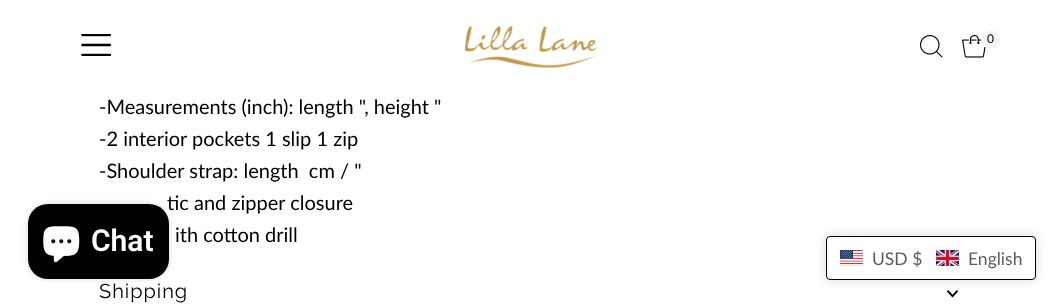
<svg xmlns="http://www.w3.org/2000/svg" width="1061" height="304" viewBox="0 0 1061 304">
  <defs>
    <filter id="blur1" x="-50%" y="-200%" width="200%" height="500%"><feGaussianBlur stdDeviation="3"/></filter>
    <filter id="blur2" x="-50%" y="-200%" width="200%" height="500%"><feGaussianBlur stdDeviation="6"/></filter>
  </defs>
  <rect width="100%" height="100%" fill="#ffffff"/>
  <image x="81" y="34" width="30" height="22" href="img1.png"/>
  <image x="465" y="26" width="132" height="42" href="img2.png"/>
  <image x="920" y="35" width="23" height="23" href="img3.png"/>
  <image x="962" y="35" width="24" height="23" href="img4.png"/>
  <circle cx="990.5" cy="39.5" r="9.5" fill="#f5f5f5"/>
  <text x="987" y="43" font-family="Lato" font-size="12" fill="#000000">0</text>
  <text x="99" y="114" font-family="Lato" font-size="20" fill="#000000">-Measurements (inch): length ", height "</text>
  <text x="99" y="146" font-family="Lato" font-size="20" fill="#000000">-2 interior pockets 1 slip 1 zip</text>
  <text x="99" y="178" font-family="Lato" font-size="20" fill="#000000" xml:space="preserve">-Shoulder strap: length  cm / "</text>
  <text x="167" y="210" font-family="Lato" font-size="20" fill="#000000">tic and zipper closure</text>
  <text x="175" y="242" font-family="Lato" font-size="20" fill="#000000">ith cotton drill</text>
  <text x="99" y="298" font-family="Raleway" font-size="20" letter-spacing="1" fill="#000000">Shipping</text>
  <image x="947" y="290" width="11" height="8" href="img5.png"/>
  <rect x="28" y="204" width="141" height="75" rx="20" fill="#000000" fill-opacity="0.15" filter="url(#blur1)"/>
  <rect x="28" y="204" width="141" height="75" rx="20" fill="#000000"/>
  <image x="43" y="226" width="37" height="37" href="img6.png"/>
  <text x="91" y="251" font-family="Roboto" font-size="30" font-weight="600" fill="#ffffff">Chat</text>
  <rect x="826" y="236" width="210" height="44" rx="4" fill="#000000" fill-opacity="0.15" filter="url(#blur2)"/>
  <rect x="826.5" y="236.5" width="209" height="43" rx="3.5" fill="#ffffff" stroke="#000000"/>
  <image x="840" y="250" width="23" height="16" href="img7.png"/>
  <text x="872" y="265" font-family="Lato" font-size="17.5" fill="#5c5c5c">USD $</text>
  <image x="936" y="250" width="23" height="16" href="img8.png"/>
  <text x="968" y="265" font-family="Lato" font-size="17.5" fill="#5c5c5c">English</text>
</svg>
